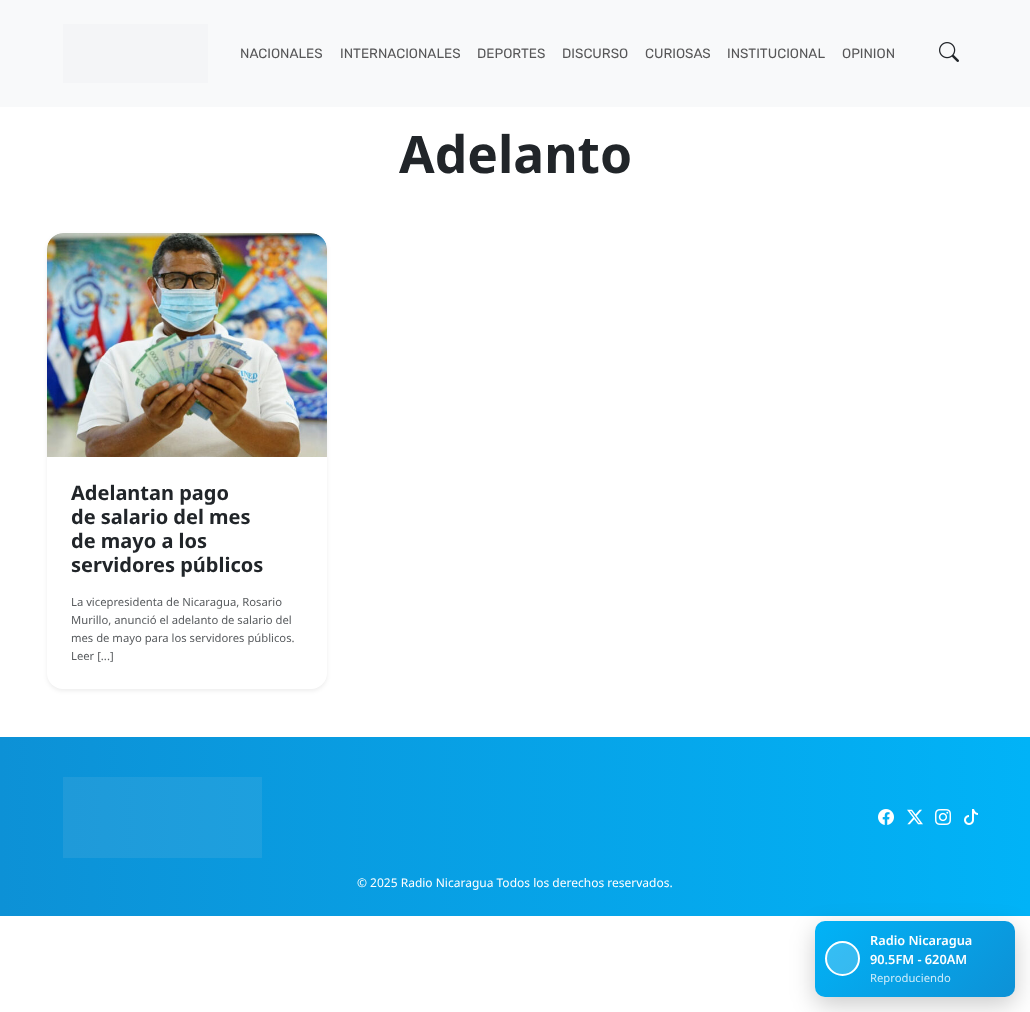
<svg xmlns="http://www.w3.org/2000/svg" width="1030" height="1012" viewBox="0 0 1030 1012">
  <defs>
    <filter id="blur1" x="-50%" y="-200%" width="200%" height="500%"><feGaussianBlur stdDeviation="2"/></filter>
    <linearGradient id="g1" gradientUnits="userSpaceOnUse" x1="0" y1="827" x2="1030" y2="827"><stop offset="0" stop-color="#0d91d6"/><stop offset="1" stop-color="#01b3f7"/></linearGradient>
    <linearGradient id="g2" gradientUnits="userSpaceOnUse" x1="0" y1="827" x2="1030" y2="827"><stop offset="0" stop-color="#2098d7"/><stop offset="1" stop-color="#16b6f4"/></linearGradient>
    <filter id="blur2" x="-50%" y="-200%" width="200%" height="500%"><feGaussianBlur stdDeviation="12.5"/></filter>
    <linearGradient id="g3" gradientUnits="userSpaceOnUse" x1="846" y1="890" x2="984" y2="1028"><stop offset="0" stop-color="#01b3f7"/><stop offset="1" stop-color="#0d91d6"/></linearGradient>
  </defs>
  <rect width="100%" height="100%" fill="#ffffff"/>
  <rect x="0" y="0" width="1030" height="107" fill="#f8f9fa"/>
  <rect x="63" y="24" width="145" height="59" fill="#f4f5f7"/>
  <text x="240" y="58" font-family="Rubik" font-size="13.5" fill="#575758">NACIONALES</text>
  <text x="340" y="58" font-family="Rubik" font-size="13.5" fill="#575758">INTERNACIONALES</text>
  <text x="477" y="58" font-family="Rubik" font-size="13.5" fill="#575758">DEPORTES</text>
  <text x="562" y="58" font-family="Rubik" font-size="13.5" fill="#575758">DISCURSO</text>
  <text x="645" y="58" font-family="Rubik" font-size="13.5" fill="#575758">CURIOSAS</text>
  <text x="727" y="58" font-family="Rubik" font-size="13.5" fill="#575758">INSTITUCIONAL</text>
  <text x="842" y="58" font-family="Rubik" font-size="13.5" fill="#575758">OPINION</text>
  <image x="939" y="42" width="20" height="20" href="img1.png"/>
  <text x="399" y="173" font-family="Noto Sans" font-size="51.5" font-weight="bold" fill="#212529">Adelanto</text>
  <rect x="47" y="235" width="280" height="456" rx="16" fill="#000000" fill-opacity="0.07" filter="url(#blur1)"/>
  <rect x="47" y="233" width="280" height="456" rx="16" fill="#ffffff"/>
  <image x="47" y="233" width="280" height="224" href="img2.png"/>
  <text x="71" y="500" font-family="Noto Sans" font-size="20" font-weight="bold" fill="#212529">Adelantan pago</text>
  <text x="71" y="524" font-family="Noto Sans" font-size="20" font-weight="bold" fill="#212529">de salario del mes</text>
  <text x="71" y="548" font-family="Noto Sans" font-size="20" font-weight="bold" fill="#212529">de mayo a los</text>
  <text x="71" y="572" font-family="Noto Sans" font-size="20" font-weight="bold" fill="#212529">servidores públicos</text>
  <text x="71" y="606" font-family="Noto Sans" font-size="11.25" fill="#595c5f">La vicepresidenta de Nicaragua, Rosario</text>
  <text x="71" y="624" font-family="Noto Sans" font-size="11.25" fill="#595c5f">Murillo, anunció el adelanto de salario del</text>
  <text x="71" y="642" font-family="Noto Sans" font-size="11.25" fill="#595c5f">mes de mayo para los servidores públicos.</text>
  <text x="71" y="660" font-family="Noto Sans" font-size="11.25" fill="#595c5f">Leer [...]</text>
  <rect x="0" y="737" width="1030" height="179" fill="url(#g1)"/>
  <rect x="63" y="777" width="199" height="81" fill="url(#g2)"/>
  <image x="878" y="809" width="16" height="16" href="img3.png"/>
  <image x="907" y="809" width="16" height="16" href="img4.png"/>
  <image x="935" y="809" width="16" height="16" href="img5.png"/>
  <image x="964" y="809" width="14" height="16" href="img6.png"/>
  <text x="357" y="887" font-family="Noto Sans" font-size="12" fill="#ffffff">© 2025 Radio Nicaragua Todos los derechos reservados.</text>
  <rect x="815" y="929" width="200" height="76" rx="10" fill="#000000" fill-opacity="0.2" filter="url(#blur2)"/>
  <rect x="815" y="921" width="200" height="76" rx="10" fill="url(#g3)"/>
  <circle cx="842.5" cy="958.5" r="16.5" fill="#ffffff" fill-opacity="0.2" stroke="#ffffff" stroke-width="2"/>
  <text x="870" y="945" font-family="Noto Sans" font-size="12.75" font-weight="600" fill="#ffffff">Radio Nicaragua</text>
  <text x="870" y="964" font-family="Noto Sans" font-size="12.75" font-weight="600" fill="#ffffff">90.5FM - 620AM</text>
  <text x="870" y="982" font-family="Noto Sans" font-size="11.25" fill="#ceecfa">Reproduciendo</text>
</svg>
